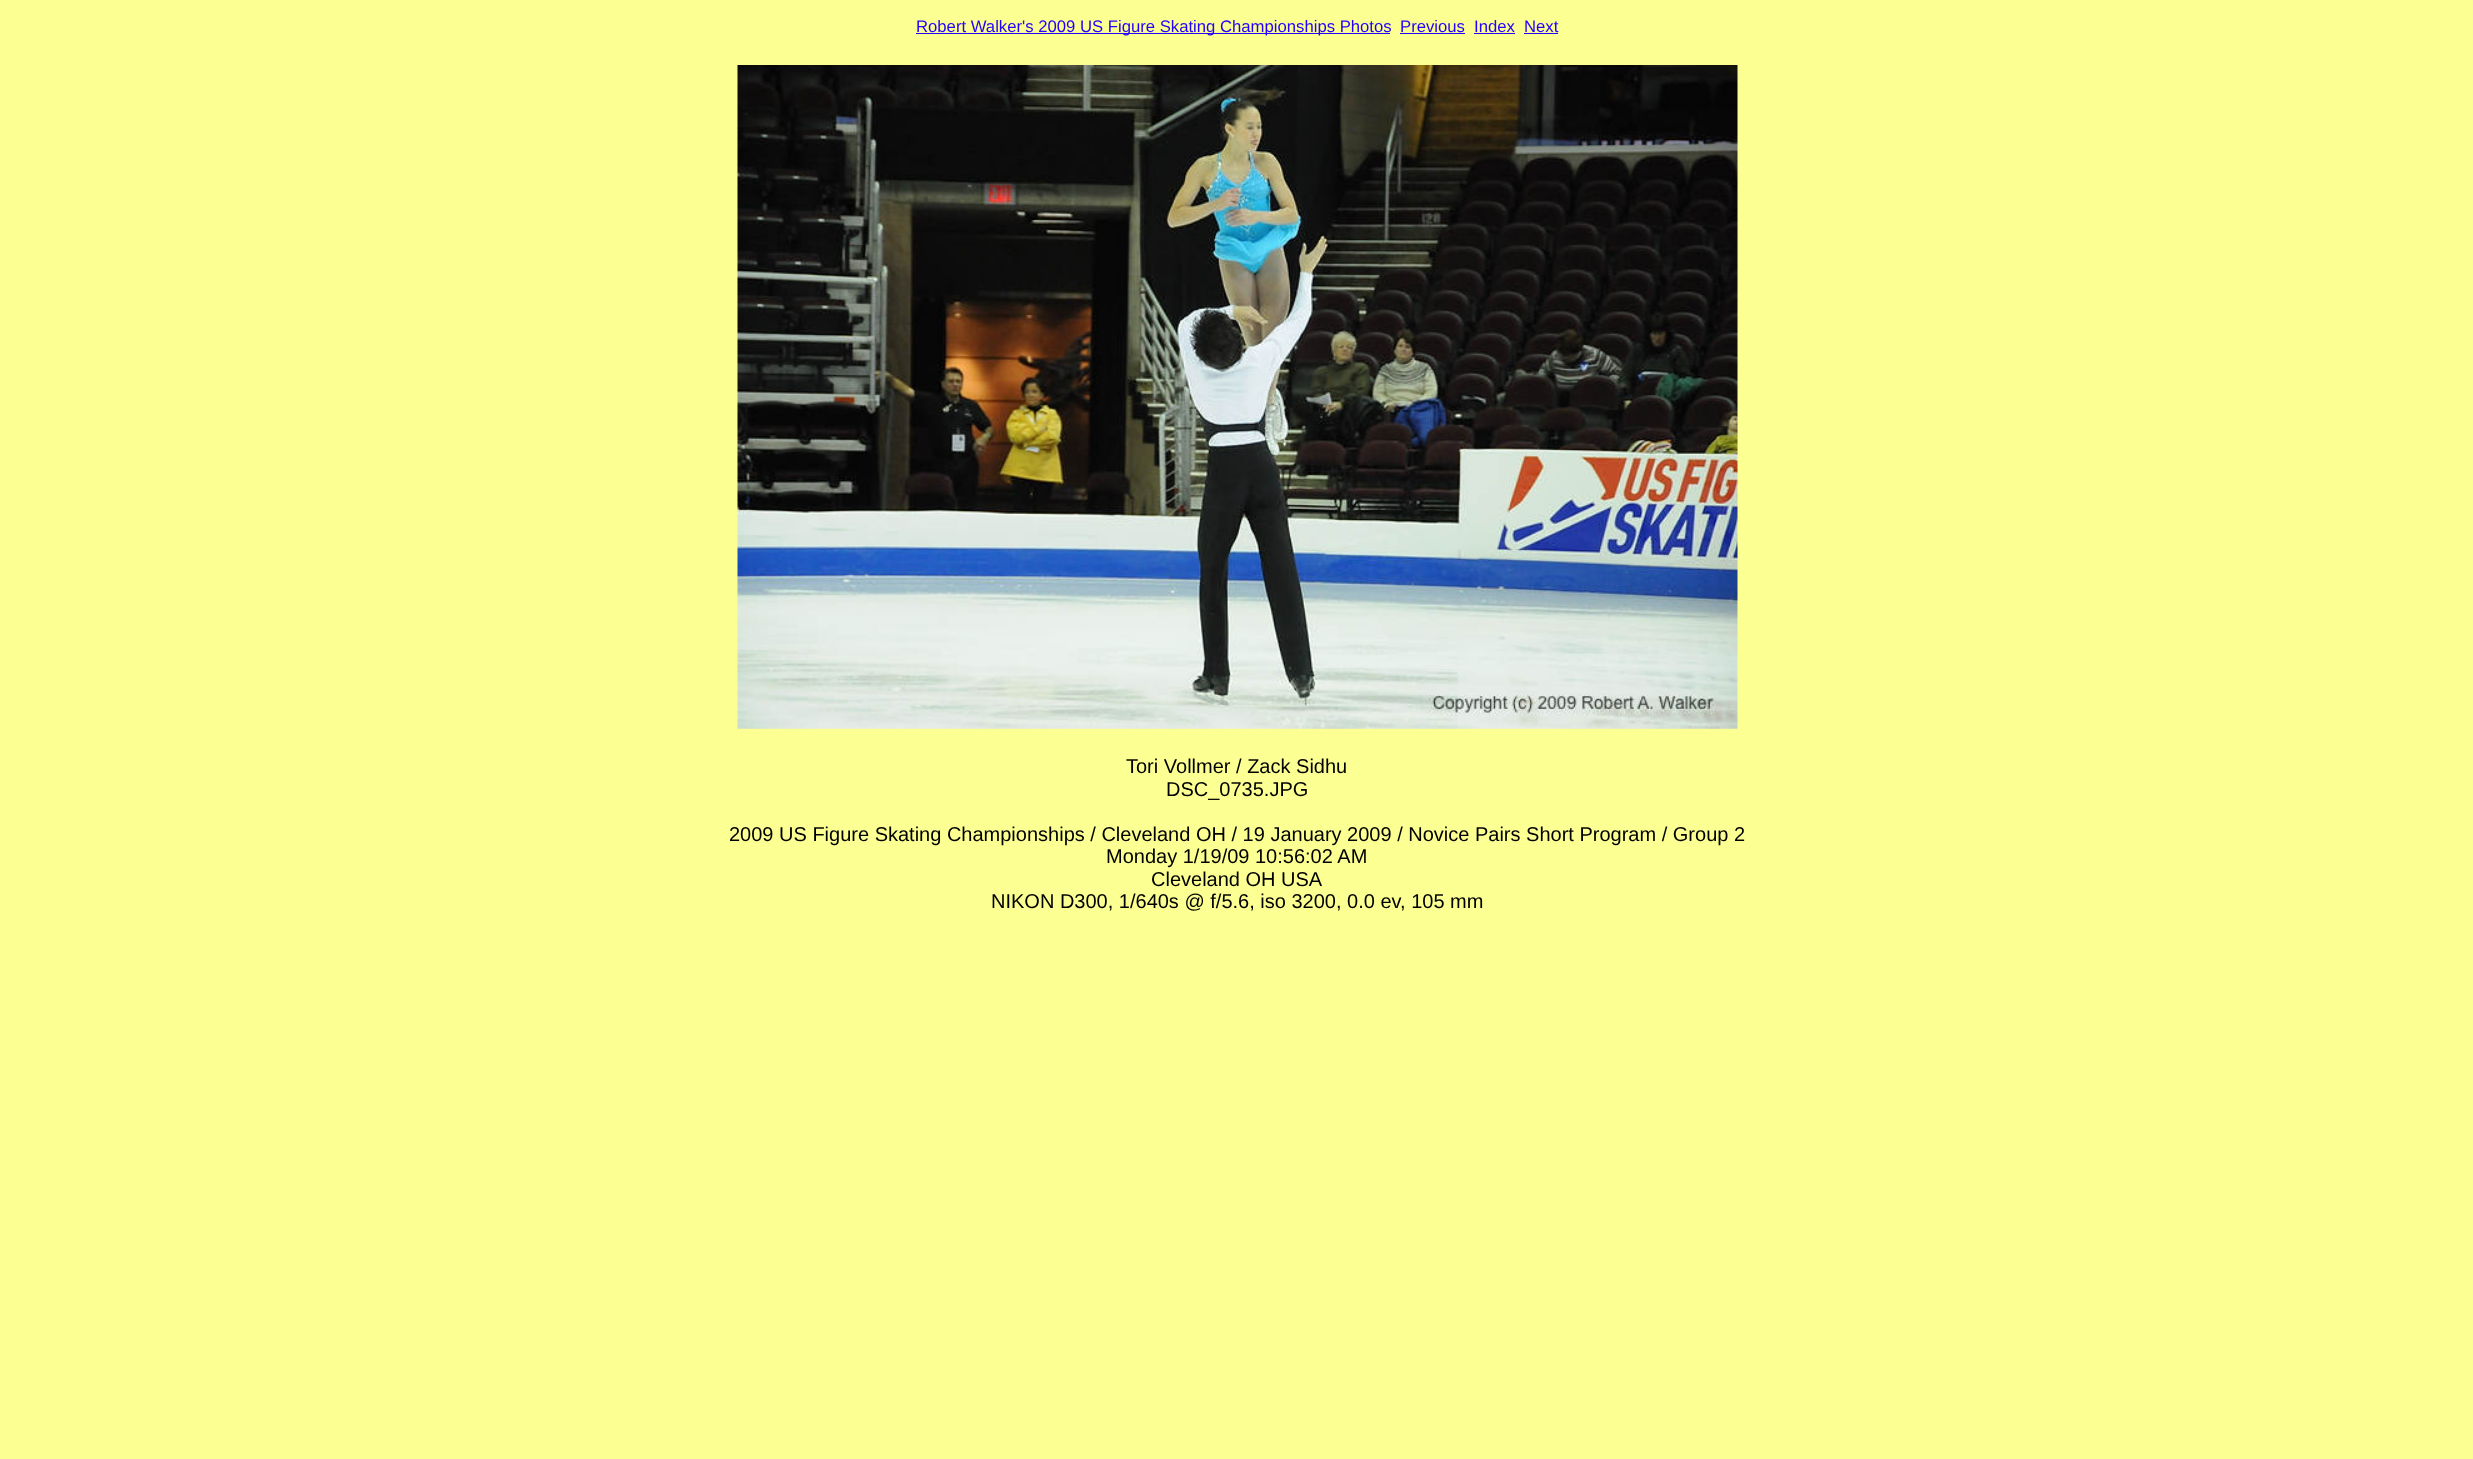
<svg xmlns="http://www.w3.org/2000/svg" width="2473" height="1459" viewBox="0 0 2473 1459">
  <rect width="100%" height="100%" fill="#fcff91"/>
  <rect x="916" y="33" width="474" height="1" fill="#2300ff"/>
  <text x="916" y="32" font-family="Liberation Sans" font-size="16.7" fill="#2300ff">Robert Walker's 2009 US Figure Skating Championships Photos</text>
  <text x="1400" y="32" font-family="Liberation Sans" font-size="16.7" fill="#2300ff">Previous</text>
  <rect x="1400" y="33" width="65" height="1" fill="#2300ff"/>
  <text x="1474" y="32" font-family="Liberation Sans" font-size="16.7" fill="#2300ff">Index</text>
  <rect x="1474" y="33" width="41" height="1" fill="#2300ff"/>
  <text x="1524" y="32" font-family="Liberation Sans" font-size="16.7" fill="#2300ff">Next</text>
  <rect x="1524" y="33" width="34" height="1" fill="#2300ff"/>
  <image x="737" y="65" width="1001" height="664" href="img1.png"/>
  <text x="1126" y="773" font-family="Liberation Sans" font-size="20" fill="#000000">Tori Vollmer / Zack Sidhu</text>
  <text x="1166" y="796" font-family="Liberation Sans" font-size="20" fill="#000000">DSC_0735.JPG</text>
  <text x="729" y="841" font-family="Liberation Sans" font-size="20" fill="#000000">2009 US Figure Skating Championships / Cleveland OH / 19 January 2009 / Novice Pairs Short Program / Group 2</text>
  <text x="1106" y="863" font-family="Liberation Sans" font-size="20" fill="#000000">Monday 1/19/09 10:56:02 AM</text>
  <text x="1151" y="886" font-family="Liberation Sans" font-size="20" fill="#000000">Cleveland OH USA</text>
  <text x="991" y="908" font-family="Liberation Sans" font-size="20" fill="#000000">NIKON D300, 1/640s @ f/5.6, iso 3200, 0.0 ev, 105 mm</text>
</svg>
